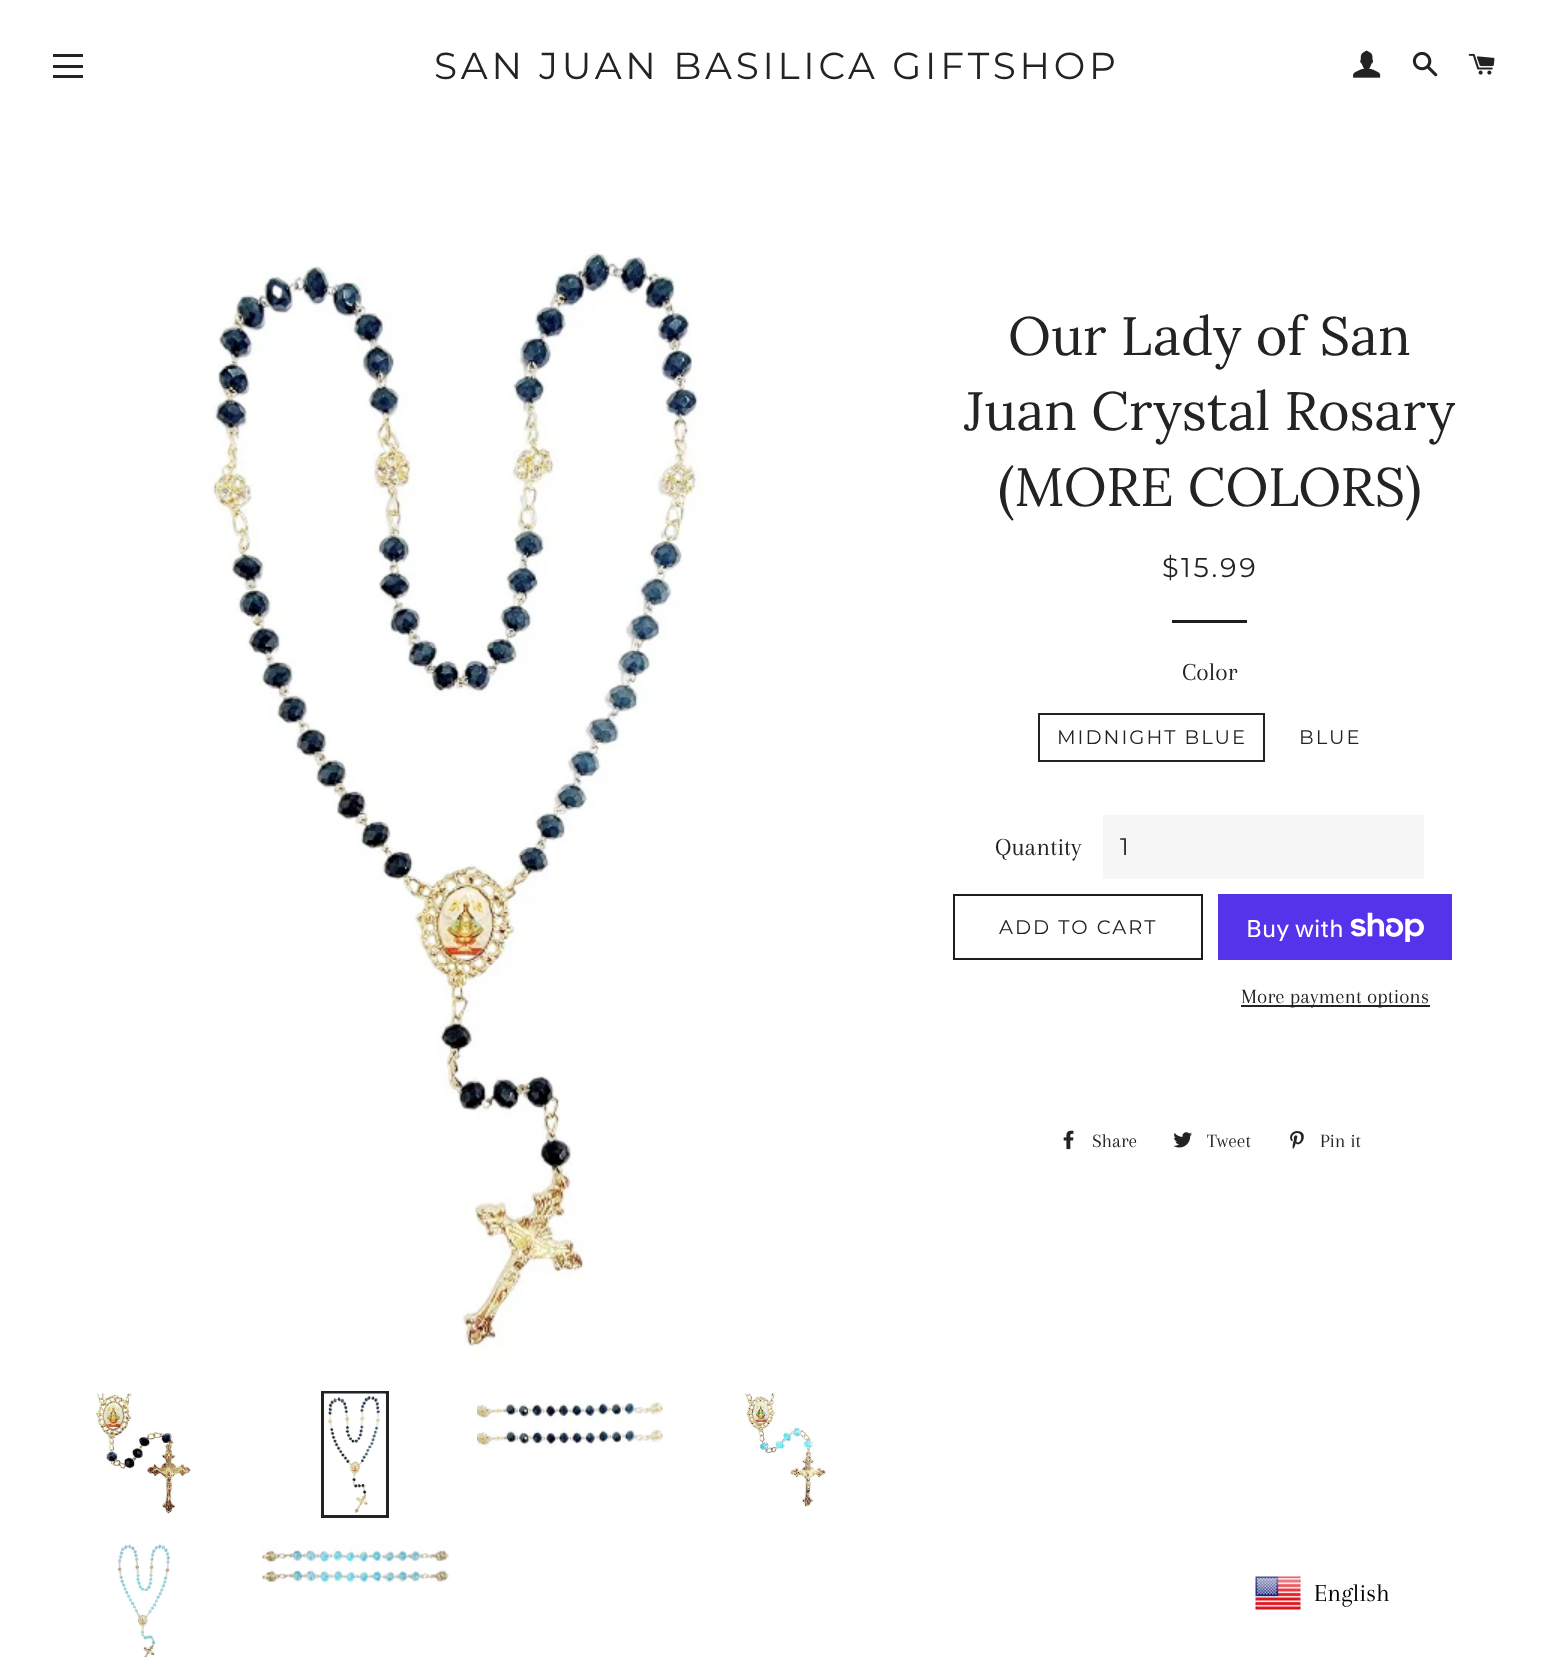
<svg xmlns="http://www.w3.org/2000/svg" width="1554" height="1657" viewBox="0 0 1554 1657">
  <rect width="100%" height="100%" fill="#ffffff"/>
  <rect x="53" y="54" width="30" height="3" fill="#222323"/>
  <rect x="53" y="65" width="30" height="3" fill="#222323"/>
  <rect x="53" y="75" width="30" height="3" fill="#222323"/>
  <text x="434" y="79" font-family="Montserrat" font-size="37.5" font-weight="100" letter-spacing="3.75" fill="#222323">SAN JUAN BASILICA GIFTSHOP</text>
  <image x="1353" y="50" width="28" height="28" href="img1.png"/>
  <image x="1412" y="51" width="26" height="26" href="img2.png"/>
  <image x="1468" y="53" width="27" height="22" href="img3.png"/>
  <image x="176" y="231" width="574" height="1137" href="img4.png"/>
  <image x="94" y="1393" width="97" height="121" href="img5.png"/>
  <rect x="322.5" y="1392.5" width="65" height="124" fill="none" stroke="#222323" stroke-width="3"/>
  <image x="324" y="1393" width="62" height="121" href="img6.png"/>
  <image x="477" y="1401" width="186" height="47" href="img7.png"/>
  <image x="744" y="1393" width="82" height="114" href="img8.png"/>
  <image x="118" y="1544" width="52" height="113" href="img9.png"/>
  <image x="262" y="1543" width="187" height="41" href="img10.png"/>
  <text x="1008" y="355" font-family="Lora" font-size="54" fill="#222323">Our Lady of San</text>
  <text x="964" y="430" font-family="Lora" font-size="54" fill="#222323">Juan Crystal Rosary</text>
  <text x="998" y="506" font-family="Lora" font-size="54" fill="#222323">(MORE COLORS)</text>
  <text x="1162" y="577" font-family="Montserrat" font-size="27" font-weight="100" letter-spacing="2.75" fill="#222323">$15.99</text>
  <rect x="1172" y="620" width="75" height="3" fill="#1c1d1d"/>
  <text x="1182" y="680" font-family="Arapey" font-size="25.5" fill="#222323">Color</text>
  <rect x="1039" y="714" width="225" height="47" fill="none" stroke="#222323" stroke-width="2"/>
  <text x="1057" y="744" font-family="Montserrat" font-size="19.5" font-weight="100" letter-spacing="2" fill="#222323">MIDNIGHT BLUE</text>
  <text x="1299" y="744" font-family="Montserrat" font-size="19.5" font-weight="100" letter-spacing="2" fill="#222323">BLUE</text>
  <text x="995" y="855" font-family="Arapey" font-size="25.5" fill="#222323">Quantity</text>
  <rect x="1103" y="815" width="321" height="64" fill="#f6f6f6"/>
  <text x="1120" y="855" font-family="Montserrat" font-size="24" font-weight="100" letter-spacing="2" fill="#1c1d1d">1</text>
  <rect x="954" y="895" width="248" height="64" fill="none" stroke="#1c1d1d" stroke-width="2"/>
  <text x="999" y="934" font-family="Montserrat" font-size="19.5" font-weight="100" letter-spacing="2" fill="#1c1d1d">ADD TO CART</text>
  <rect x="1218" y="894" width="234" height="66" fill="#5433eb"/>
  <text x="1246" y="937" font-family="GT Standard" font-size="24" fill="#ffffff">Buy with</text>
  <image x="1350" y="912" width="74" height="30" href="img11.png"/>
  <rect x="1241" y="1005" width="189" height="2" fill="#222323"/>
  <text x="1241" y="1003" font-family="Arapey" font-size="21" fill="#222323">More payment options</text>
  <image x="1063" y="1130" width="11" height="20" href="img12.png"/>
  <text x="1092" y="1147" font-family="Arapey" font-size="19.5" fill="#222323">Share</text>
  <image x="1173" y="1132" width="19" height="16" href="img13.png"/>
  <text x="1207" y="1147" font-family="Arapey" font-size="19.5" fill="#222323">Tweet</text>
  <image x="1290" y="1131" width="14" height="18" href="img14.png"/>
  <text x="1320" y="1147" font-family="Arapey" font-size="19.5" fill="#222323">Pin it</text>
  <image x="1255" y="1576" width="46" height="34" href="img15.png"/>
  <text x="1314" y="1601" font-family="Arapey" font-size="25.5" fill="#000000">English</text>
</svg>
